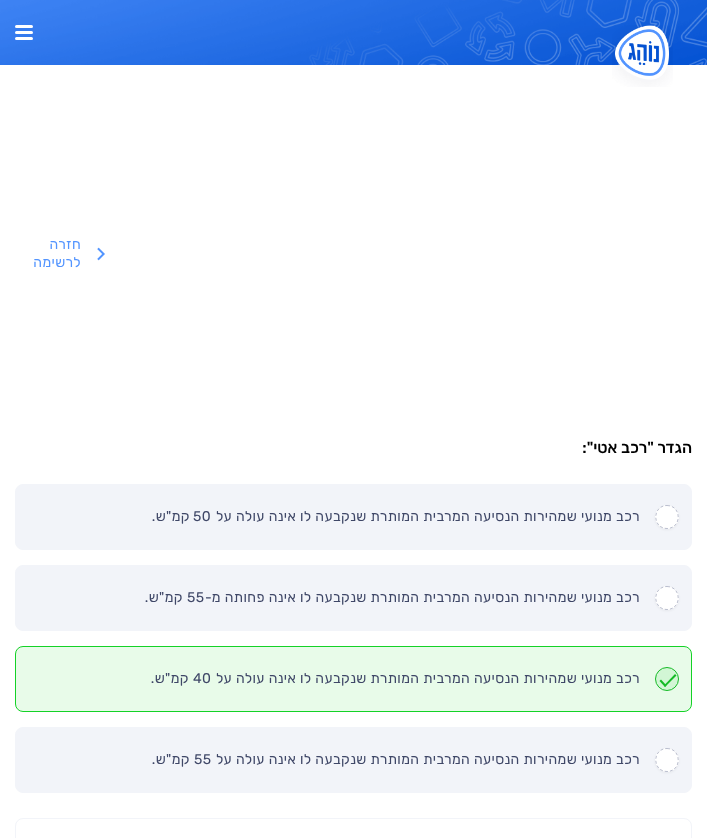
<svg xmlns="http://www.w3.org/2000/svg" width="707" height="838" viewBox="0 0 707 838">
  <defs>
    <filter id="blur1" x="-50%" y="-200%" width="200%" height="500%"><feGaussianBlur stdDeviation="1"/></filter>
  </defs>
  <rect width="100%" height="100%" fill="#ffffff"/>
  <image x="0" y="0" width="707" height="65" href="img1.png"/>
  <image x="612" y="25" width="61" height="62" href="img2.png"/>
  <rect x="15" y="25" width="18" height="3" rx="1.5" fill="#ffffff"/>
  <rect x="15" y="31" width="18" height="3" rx="1.5" fill="#ffffff"/>
  <rect x="15" y="37" width="18" height="3" rx="1.5" fill="#ffffff"/>
  <text x="81" y="249" font-family="Rubik" font-size="14" letter-spacing="0.4" direction="rtl" fill="#5294ff">חזרה</text>
  <image x="97" y="247" width="8" height="14" href="img3.png"/>
  <text x="81" y="267" font-family="Rubik" font-size="14" letter-spacing="0.4" direction="rtl" fill="#5294ff">לרשימה</text>
  <text x="692" y="453" font-family="Rubik" font-size="16" font-weight="500" direction="rtl" fill="#000000">הגדר "רכב אטי":</text>
  <rect x="15.5" y="484.5" width="676" height="65" rx="7.5" fill="#f2f4f9" stroke="#f2f4f9"/>
  <rect x="655" y="506" width="24" height="24" rx="12" fill="#000000" fill-opacity="0.05" filter="url(#blur1)"/>
  <circle cx="667" cy="517" r="12" fill="#ffffff"/>
  <path d="M667 505.5C682 505.5 682 528.5 667 528.5C652 528.5 652 505.5 667 505.5Z" fill="none" stroke="#babece" stroke-dasharray="3 2"/>
  <text x="640" y="521" font-family="Rubik" font-size="14" letter-spacing="0.4" direction="rtl" fill="#3f4767">רכב מנועי שמהירות הנסיעה המרבית המותרת שנקבעה לו אינה עולה על</text>
  <text x="193" y="521" font-family="Rubik" font-size="14" letter-spacing="0.4" fill="#3f4767">50</text>
  <text x="190" y="521" font-family="Rubik" font-size="14" letter-spacing="0.4" direction="rtl" fill="#3f4767">קמ"ש.</text>
  <rect x="15.5" y="565.5" width="676" height="65" rx="7.5" fill="#f2f4f9" stroke="#f2f4f9"/>
  <rect x="655" y="587" width="24" height="24" rx="12" fill="#000000" fill-opacity="0.05" filter="url(#blur1)"/>
  <circle cx="667" cy="598" r="12" fill="#ffffff"/>
  <path d="M667 586.5C682 586.5 682 609.5 667 609.5C652 609.5 652 586.5 667 586.5Z" fill="none" stroke="#babece" stroke-dasharray="3 2"/>
  <text x="640" y="602" font-family="Rubik" font-size="14" letter-spacing="0.4" direction="rtl" fill="#3f4767">רכב מנועי שמהירות הנסיעה המרבית המותרת שנקבעה לו אינה פחותה מ-</text>
  <text x="187" y="602" font-family="Rubik" font-size="14" letter-spacing="0.4" fill="#3f4767">55</text>
  <text x="183" y="602" font-family="Rubik" font-size="14" letter-spacing="0.4" direction="rtl" fill="#3f4767">קמ"ש.</text>
  <rect x="15.5" y="646.5" width="676" height="65" rx="7.5" fill="#e8fbe9" stroke="#14d227"/>
  <circle cx="667" cy="679" r="11.5" fill="#14d227" fill-opacity="0.1" stroke="#15bb26"/>
  <text x="640" y="683" font-family="Rubik" font-size="14" letter-spacing="0.4" direction="rtl" fill="#3f4767">רכב מנועי שמהירות הנסיעה המרבית המותרת שנקבעה לו אינה עולה על</text>
  <text x="193" y="683" font-family="Rubik" font-size="14" letter-spacing="0.4" fill="#3f4767">40</text>
  <text x="189" y="683" font-family="Rubik" font-size="14" letter-spacing="0.4" direction="rtl" fill="#3f4767">קמ"ש.</text>
  <path d="M675 674L676.5 675.5L665 687L664 685.5Z" fill="#15bb26"/>
  <path d="M661 679.5L666.5 685.5L665 687L659.5 681Z" fill="#15bb26"/>
  <rect x="15.5" y="727.5" width="676" height="65" rx="7.5" fill="#f2f4f9" stroke="#f2f4f9"/>
  <rect x="655" y="749" width="24" height="24" rx="12" fill="#000000" fill-opacity="0.05" filter="url(#blur1)"/>
  <circle cx="667" cy="760" r="12" fill="#ffffff"/>
  <path d="M667 748.5C682 748.5 682 771.5 667 771.5C652 771.5 652 748.5 667 748.5Z" fill="none" stroke="#babece" stroke-dasharray="3 2"/>
  <text x="640" y="764" font-family="Rubik" font-size="14" letter-spacing="0.4" direction="rtl" fill="#3f4767">רכב מנועי שמהירות הנסיעה המרבית המותרת שנקבעה לו אינה עולה על</text>
  <text x="194" y="764" font-family="Rubik" font-size="14" letter-spacing="0.4" fill="#3f4767">55</text>
  <text x="190" y="764" font-family="Rubik" font-size="14" letter-spacing="0.4" direction="rtl" fill="#3f4767">קמ"ש.</text>
  <rect x="15.5" y="818.5" width="676" height="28" rx="7.5" fill="none" stroke="#f2f4f9"/>
</svg>
